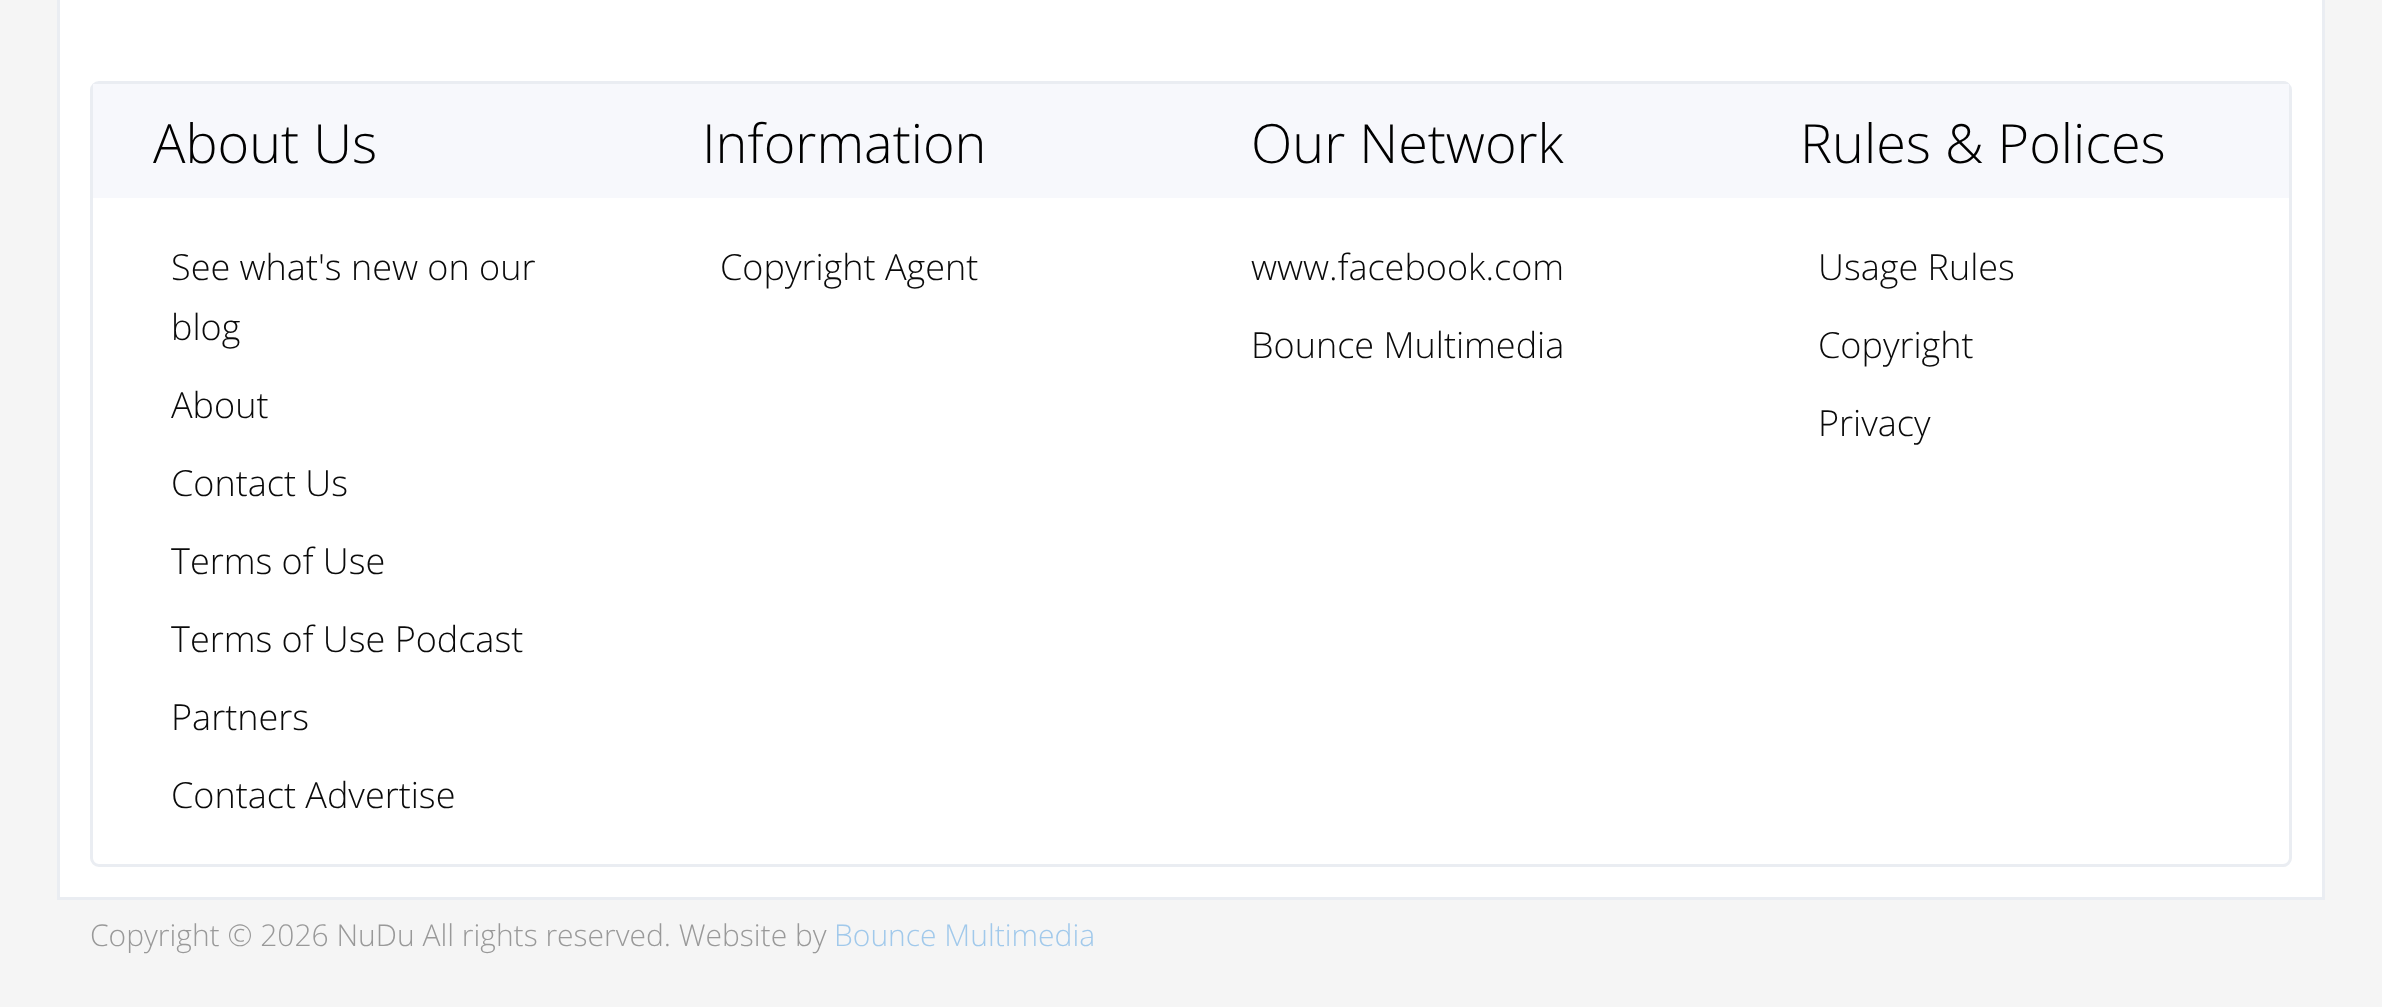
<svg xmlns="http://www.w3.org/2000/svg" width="2382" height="1007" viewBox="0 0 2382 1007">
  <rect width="100%" height="100%" fill="#f5f5f5"/>
  <rect x="60" y="0" width="2262" height="897" fill="#ffffff"/>
  <rect x="2322" y="0" width="3" height="900" fill="#eaedf2"/>
  <rect x="57" y="897" width="2268" height="3" fill="#eaedf2"/>
  <rect x="57" y="0" width="3" height="900" fill="#eaedf2"/>
  <rect x="91.5" y="82.5" width="2199" height="783" rx="7.5" fill="none" stroke="#eaedf2" stroke-width="3"/>
  <rect x="93" y="84" width="2196" height="114" fill="#f7f8fc"/>
  <text x="153" y="163" font-family="Open Sans" font-size="54" font-weight="300" fill="#000000">About Us</text>
  <text x="171" y="280" font-family="Open Sans" font-size="36" font-weight="300" fill="#0a0a0a">See what's new on our</text>
  <text x="171" y="340" font-family="Open Sans" font-size="36" font-weight="300" fill="#0a0a0a">blog</text>
  <text x="171" y="418" font-family="Open Sans" font-size="36" font-weight="300" fill="#0a0a0a">About</text>
  <text x="171" y="496" font-family="Open Sans" font-size="36" font-weight="300" fill="#0a0a0a">Contact Us</text>
  <text x="171" y="574" font-family="Open Sans" font-size="36" font-weight="300" fill="#0a0a0a">Terms of Use</text>
  <text x="171" y="652" font-family="Open Sans" font-size="36" font-weight="300" fill="#0a0a0a">Terms of Use Podcast</text>
  <text x="171" y="730" font-family="Open Sans" font-size="36" font-weight="300" fill="#0a0a0a">Partners</text>
  <text x="171" y="808" font-family="Open Sans" font-size="36" font-weight="300" fill="#0a0a0a">Contact Advertise</text>
  <text x="702" y="163" font-family="Open Sans" font-size="54" font-weight="300" fill="#000000">Information</text>
  <text x="720" y="280" font-family="Open Sans" font-size="36" font-weight="300" fill="#0a0a0a">Copyright Agent</text>
  <text x="1251" y="163" font-family="Open Sans" font-size="54" font-weight="300" fill="#000000">Our Network</text>
  <text x="1251" y="280" font-family="Open Sans" font-size="36" font-weight="300" fill="#0a0a0a">www.facebook.com</text>
  <text x="1251" y="358" font-family="Open Sans" font-size="36" font-weight="300" fill="#0a0a0a">Bounce Multimedia</text>
  <text x="1800" y="163" font-family="Open Sans" font-size="54" font-weight="300" fill="#000000">Rules &amp; Polices</text>
  <text x="1818" y="280" font-family="Open Sans" font-size="36" font-weight="300" fill="#0a0a0a">Usage Rules</text>
  <text x="1818" y="358" font-family="Open Sans" font-size="36" font-weight="300" fill="#0a0a0a">Copyright</text>
  <text x="1818" y="436" font-family="Open Sans" font-size="36" font-weight="300" fill="#0a0a0a">Privacy</text>
  <text x="90" y="946" font-family="Open Sans" font-size="30" font-weight="300" fill="#999999">Copyright © 2026 NuDu All rights reserved. Website by</text>
  <text x="834" y="946" font-family="Open Sans" font-size="30" font-weight="300" fill="#a1c9eb">Bounce Multimedia</text>
</svg>
